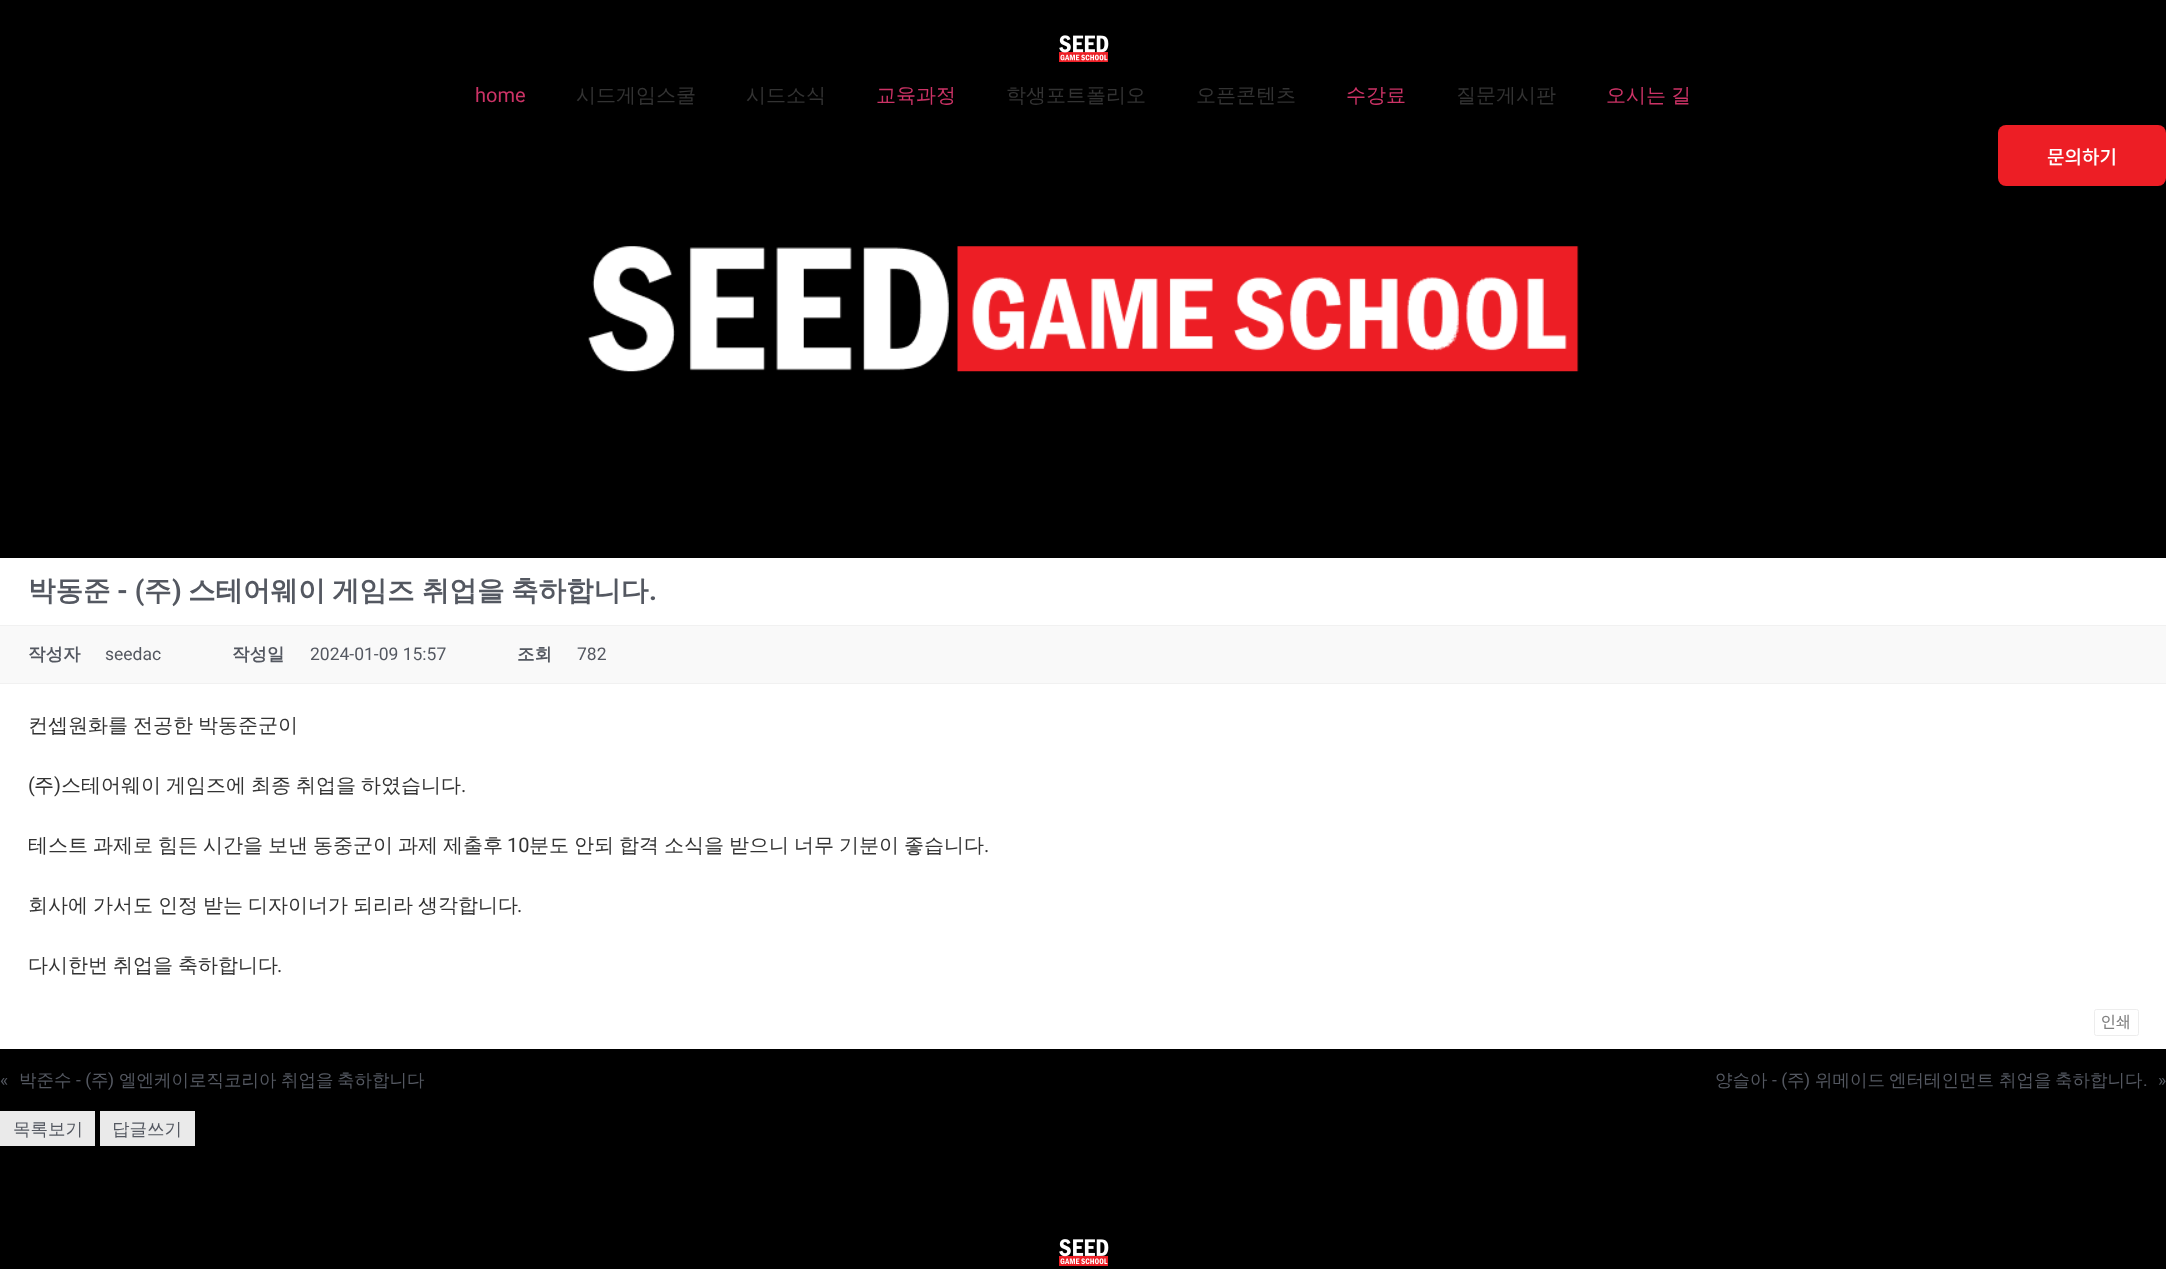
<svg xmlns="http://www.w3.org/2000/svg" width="2166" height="1269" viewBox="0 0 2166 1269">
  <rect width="100%" height="100%" fill="#000000"/>
  <image x="1059" y="35" width="50" height="27" href="img1.png"/>
  <text x="475" y="102" font-family="Roboto" font-size="20" fill="#cc3366">home</text>
  <text x="576" y="102" font-family="WenQuanYi Zen Hei" font-size="20" font-weight="500" fill="#333333">시드게임스쿨</text>
  <text x="746" y="102" font-family="WenQuanYi Zen Hei" font-size="20" font-weight="500" fill="#333333">시드소식</text>
  <text x="876" y="102" font-family="WenQuanYi Zen Hei" font-size="20" font-weight="500" fill="#cc3366">교육과정</text>
  <text x="1006" y="102" font-family="WenQuanYi Zen Hei" font-size="20" font-weight="500" fill="#333333">학생포트폴리오</text>
  <text x="1196" y="102" font-family="WenQuanYi Zen Hei" font-size="20" font-weight="500" fill="#333333">오픈콘텐츠</text>
  <text x="1346" y="102" font-family="WenQuanYi Zen Hei" font-size="20" font-weight="500" fill="#cc3366">수강료</text>
  <text x="1456" y="102" font-family="WenQuanYi Zen Hei" font-size="20" font-weight="500" fill="#333333">질문게시판</text>
  <text x="1606" y="102" word-spacing="-1" font-family="WenQuanYi Zen Hei" font-size="20" font-weight="500" fill="#cc3366">오시는 길</text>
  <rect x="1998" y="125" width="168" height="61" rx="8" fill="#ed1e25"/>
  <text x="2047" y="164" font-family="Noto Sans KR" font-size="19" font-weight="500" fill="#ffffff">문의하기</text>
  <image x="588" y="246" width="991" height="126" href="img2.png"/>
  <rect x="0" y="558" width="2166" height="491" fill="#ffffff"/>
  <text x="28" y="600" font-family="WenQuanYi Zen Hei" font-size="27.5" font-weight="bold" fill="#545861">박동준</text>
  <text x="117" y="600" font-family="Roboto" font-size="27.5" font-weight="bold" fill="#545861">- (</text>
  <text x="144" y="600" font-family="WenQuanYi Zen Hei" font-size="27.5" font-weight="bold" fill="#545861">주</text>
  <text x="172" y="600" font-family="Roboto" font-size="27.5" font-weight="bold" fill="#545861">)</text>
  <text x="188" y="600" font-family="WenQuanYi Zen Hei" font-size="27.5" font-weight="bold" fill="#545861">스테어웨이</text>
  <text x="332" y="600" font-family="WenQuanYi Zen Hei" font-size="27.5" font-weight="bold" fill="#545861">게임즈</text>
  <text x="422" y="600" font-family="WenQuanYi Zen Hei" font-size="27.5" font-weight="bold" fill="#545861">취업을</text>
  <text x="511" y="600" font-family="WenQuanYi Zen Hei" font-size="27.5" font-weight="bold" fill="#545861">축하합니다</text>
  <text x="649" y="600" font-family="Roboto" font-size="27.5" font-weight="bold" fill="#545861">.</text>
  <rect x="0" y="626" width="2166" height="57" fill="#f9f9f9"/>
  <rect x="0" y="625" width="2166" height="1" fill="#f1f1f1"/>
  <rect x="0" y="683" width="2166" height="1" fill="#f1f1f1"/>
  <text x="28" y="660" font-family="WenQuanYi Zen Hei" font-size="17.5" font-weight="bold" fill="#545861">작성자</text>
  <text x="105" y="660" font-family="Roboto" font-size="17.5" fill="#545861">seedac</text>
  <text x="232" y="660" font-family="WenQuanYi Zen Hei" font-size="17.5" font-weight="bold" fill="#545861">작성일</text>
  <text x="310" y="660" font-family="Roboto" font-size="17.5" fill="#545861">2024-01-09 15:57</text>
  <text x="517" y="660" font-family="WenQuanYi Zen Hei" font-size="17.5" font-weight="bold" fill="#545861">조회</text>
  <text x="577" y="660" font-family="Roboto" font-size="17.5" fill="#545861">782</text>
  <text x="28" y="732" word-spacing="-1" font-family="WenQuanYi Zen Hei" font-size="20" font-weight="500" fill="#333333">컨셉원화를 전공한 박동준군이</text>
  <text x="28" y="792" font-family="Roboto" font-size="20" fill="#333333">(</text>
  <text x="34" y="792" font-family="WenQuanYi Zen Hei" font-size="20" font-weight="500" fill="#333333">주</text>
  <text x="54" y="792" font-family="Roboto" font-size="20" fill="#333333">)</text>
  <text x="61" y="792" word-spacing="-1" font-family="WenQuanYi Zen Hei" font-size="20" font-weight="500" fill="#333333">스테어웨이 게임즈에 최종 취업을 하였습니다</text>
  <text x="461" y="792" font-family="Roboto" font-size="20" fill="#333333">.</text>
  <text x="28" y="852" word-spacing="-1" font-family="WenQuanYi Zen Hei" font-size="20" font-weight="500" fill="#333333">테스트 과제로 힘든 시간을 보낸 동중군이 과제 제출후</text>
  <text x="507" y="852" font-family="Roboto" font-size="20" fill="#333333">10</text>
  <text x="529" y="852" word-spacing="-1" font-family="WenQuanYi Zen Hei" font-size="20" font-weight="500" fill="#333333">분도 안되 합격 소식을 받으니 너무 기분이 좋습니다</text>
  <text x="984" y="852" font-family="Roboto" font-size="20" fill="#333333">.</text>
  <text x="28" y="912" word-spacing="-1" font-family="WenQuanYi Zen Hei" font-size="20" font-weight="500" fill="#333333">회사에 가서도 인정 받는 디자이너가 되리라 생각합니다</text>
  <text x="517" y="912" font-family="Roboto" font-size="20" fill="#333333">.</text>
  <text x="28" y="972" word-spacing="-1" font-family="WenQuanYi Zen Hei" font-size="20" font-weight="500" fill="#333333">다시한번 취업을 축하합니다</text>
  <text x="277" y="972" font-family="Roboto" font-size="20" fill="#333333">.</text>
  <rect x="2094.5" y="1009.5" width="44" height="26" rx="2" fill="none" stroke="#ededed"/>
  <text x="2101" y="1028" font-family="Noto Sans KR" font-size="16" fill="#808080">인쇄</text>
  <text x="0" y="1086" font-family="Roboto" font-size="17.5" fill="#545861">«</text>
  <text x="19" y="1086" font-family="WenQuanYi Zen Hei" font-size="17.5" font-weight="500" fill="#545861">박준수</text>
  <text x="76" y="1086" font-family="Roboto" font-size="17.5" fill="#545861">- (</text>
  <text x="91" y="1086" font-family="WenQuanYi Zen Hei" font-size="17.5" font-weight="500" fill="#545861">주</text>
  <text x="108" y="1086" font-family="Roboto" font-size="17.5" fill="#545861">)</text>
  <text x="119" y="1086" font-family="WenQuanYi Zen Hei" font-size="17.5" font-weight="500" fill="#545861">엘엔케이로직코리아</text>
  <text x="281" y="1086" font-family="WenQuanYi Zen Hei" font-size="17.5" font-weight="500" fill="#545861">취업을</text>
  <text x="337" y="1086" font-family="WenQuanYi Zen Hei" font-size="17.5" font-weight="500" fill="#545861">축하합니다</text>
  <text x="1715" y="1086" font-family="WenQuanYi Zen Hei" font-size="17.5" font-weight="500" fill="#545861">양슬아</text>
  <text x="1772" y="1086" font-family="Roboto" font-size="17.5" fill="#545861">- (</text>
  <text x="1787" y="1086" font-family="WenQuanYi Zen Hei" font-size="17.5" font-weight="500" fill="#545861">주</text>
  <text x="1804" y="1086" font-family="Roboto" font-size="17.5" fill="#545861">)</text>
  <text x="1815" y="1086" font-family="WenQuanYi Zen Hei" font-size="17.5" font-weight="500" fill="#545861">위메이드</text>
  <text x="1889" y="1086" font-family="WenQuanYi Zen Hei" font-size="17.5" font-weight="500" fill="#545861">엔터테인먼트</text>
  <text x="1999" y="1086" font-family="WenQuanYi Zen Hei" font-size="17.5" font-weight="500" fill="#545861">취업을</text>
  <text x="2055" y="1086" font-family="WenQuanYi Zen Hei" font-size="17.5" font-weight="500" fill="#545861">축하합니다</text>
  <text x="2143" y="1086" font-family="Roboto" font-size="17.5" fill="#545861">.</text>
  <text x="2158" y="1086" font-family="Roboto" font-size="17.5" fill="#545861">»</text>
  <rect x="0" y="1111" width="95" height="35" fill="#eaeaea"/>
  <text x="13" y="1135" font-family="WenQuanYi Zen Hei" font-size="17.5" font-weight="500" fill="#545861">목록보기</text>
  <rect x="100" y="1111" width="95" height="35" fill="#eaeaea"/>
  <text x="112" y="1135" font-family="WenQuanYi Zen Hei" font-size="17.5" font-weight="500" fill="#545861">답글쓰기</text>
  <image x="1059" y="1239" width="50" height="27" href="img3.png"/>
</svg>
